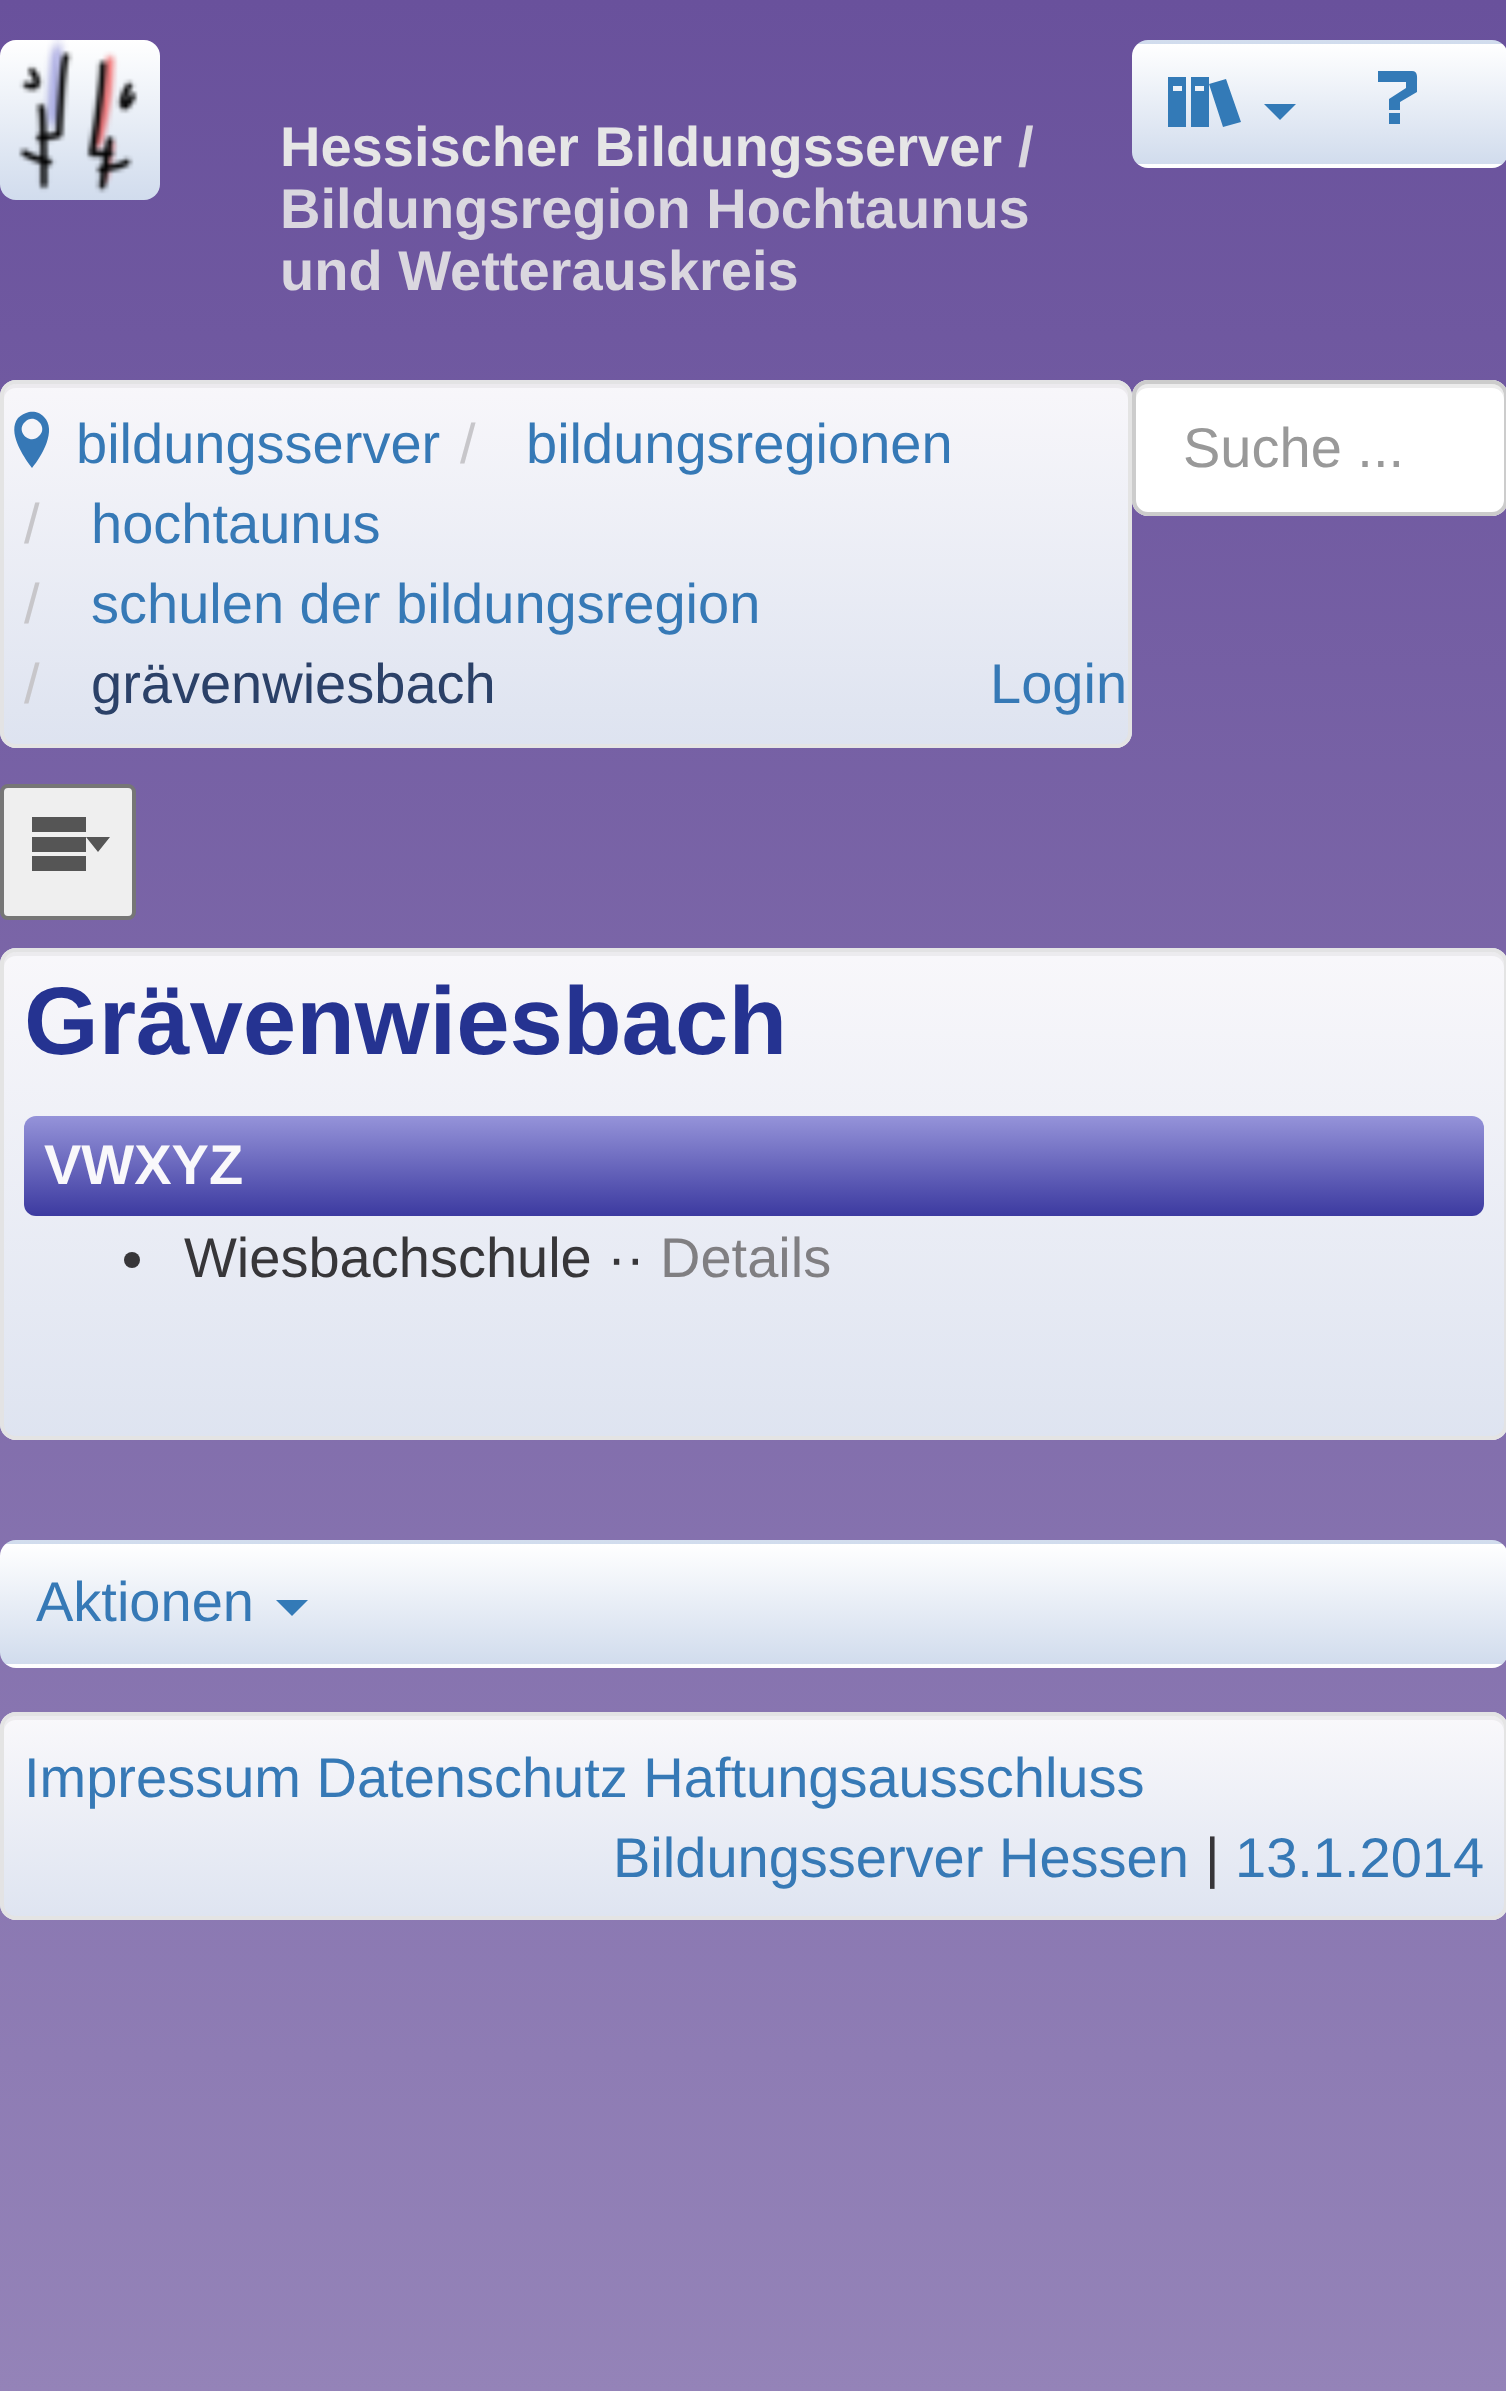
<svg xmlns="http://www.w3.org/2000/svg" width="1506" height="2391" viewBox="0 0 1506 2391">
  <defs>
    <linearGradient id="g1" gradientUnits="userSpaceOnUse" x1="0" y1="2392" x2="0" y2="0"><stop offset="0" stop-color="#9483b8"/><stop offset="1" stop-color="#69519c"/></linearGradient>
    <clipPath id="clip1"><rect x="1132" y="40" width="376" height="128" rx="16"/></clipPath>
    <linearGradient id="g2" gradientUnits="userSpaceOnUse" x1="1136" y1="44" x2="1136" y2="-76"><stop offset="0" stop-color="#d1dced"/><stop offset="1" stop-color="#ffffff"/></linearGradient>
    <linearGradient id="g3" gradientUnits="userSpaceOnUse" x1="1136" y1="164" x2="1136" y2="44"><stop offset="0" stop-color="#d1dced"/><stop offset="1" stop-color="#ffffff"/></linearGradient>
    <linearGradient id="g4" gradientUnits="userSpaceOnUse" x1="1136" y1="284" x2="1136" y2="164"><stop offset="0" stop-color="#d1dced"/><stop offset="1" stop-color="#ffffff"/></linearGradient>
    <linearGradient id="g5" gradientUnits="userSpaceOnUse" x1="0" y1="200" x2="0" y2="40"><stop offset="0" stop-color="#d1dced"/><stop offset="1" stop-color="#ffffff"/></linearGradient>
    <clipPath id="clip2"><rect x="0" y="380" width="1132" height="368" rx="16"/></clipPath>
    <linearGradient id="g6" gradientUnits="userSpaceOnUse" x1="4" y1="384" x2="4" y2="24"><stop offset="0" stop-color="#dde3f0"/><stop offset="1" stop-color="#f8f7fa"/></linearGradient>
    <linearGradient id="g7" gradientUnits="userSpaceOnUse" x1="4" y1="744" x2="4" y2="384"><stop offset="0" stop-color="#e3eaf4" stop-opacity="0.95"/><stop offset="1" stop-color="#ffffff" stop-opacity="0.95"/></linearGradient>
    <linearGradient id="g8" gradientUnits="userSpaceOnUse" x1="4" y1="1104" x2="4" y2="744"><stop offset="0" stop-color="#dee3f0"/><stop offset="1" stop-color="#f8f7fb"/></linearGradient>
    <clipPath id="clip3"><rect x="0" y="948" width="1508" height="492" rx="16"/></clipPath>
    <linearGradient id="g9" gradientUnits="userSpaceOnUse" x1="4" y1="952" x2="4" y2="468"><stop offset="0" stop-color="#dee3f0"/><stop offset="1" stop-color="#f8f7fb"/></linearGradient>
    <linearGradient id="g10" gradientUnits="userSpaceOnUse" x1="4" y1="1436" x2="4" y2="952"><stop offset="0" stop-color="#e3eaf4" stop-opacity="0.95"/><stop offset="1" stop-color="#ffffff" stop-opacity="0.95"/></linearGradient>
    <linearGradient id="g11" gradientUnits="userSpaceOnUse" x1="4" y1="1920" x2="4" y2="1436"><stop offset="0" stop-color="#dee4f0"/><stop offset="1" stop-color="#f9f8fb"/></linearGradient>
    <linearGradient id="g12" gradientUnits="userSpaceOnUse" x1="24" y1="1216" x2="24" y2="1116"><stop offset="0" stop-color="#3c3aa0"/><stop offset="1" stop-color="#9593d9"/></linearGradient>
    <clipPath id="clip4"><rect x="0" y="1540" width="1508" height="128" rx="16"/></clipPath>
    <linearGradient id="g13" gradientUnits="userSpaceOnUse" x1="4" y1="1544" x2="4" y2="1424"><stop offset="0" stop-color="#d1dced"/><stop offset="1" stop-color="#ffffff"/></linearGradient>
    <linearGradient id="g14" gradientUnits="userSpaceOnUse" x1="4" y1="1664" x2="4" y2="1544"><stop offset="0" stop-color="#d1dced"/><stop offset="1" stop-color="#ffffff"/></linearGradient>
    <linearGradient id="g15" gradientUnits="userSpaceOnUse" x1="4" y1="1784" x2="4" y2="1664"><stop offset="0" stop-color="#d1dced"/><stop offset="1" stop-color="#ffffff"/></linearGradient>
    <clipPath id="clip5"><rect x="0" y="1712" width="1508" height="208" rx="16"/></clipPath>
    <linearGradient id="g16" gradientUnits="userSpaceOnUse" x1="4" y1="1716" x2="4" y2="1516"><stop offset="0" stop-color="#dee4f1"/><stop offset="1" stop-color="#f9f8fb"/></linearGradient>
    <linearGradient id="g17" gradientUnits="userSpaceOnUse" x1="4" y1="1916" x2="4" y2="1716"><stop offset="0" stop-color="#e3eaf4" stop-opacity="0.95"/><stop offset="1" stop-color="#ffffff" stop-opacity="0.95"/></linearGradient>
    <linearGradient id="g18" gradientUnits="userSpaceOnUse" x1="4" y1="2116" x2="4" y2="1916"><stop offset="0" stop-color="#dfe4f1"/><stop offset="1" stop-color="#f9f8fb"/></linearGradient>
  </defs>
  <rect width="100%" height="100%" fill="#ffffff"/>
  <rect x="0" y="0" width="1506" height="2391" fill="url(#g1)"/>
  <g clip-path="url(#clip1)">
    <rect x="1132" y="40" width="374" height="4" fill="url(#g2)"/>
    <rect x="1132" y="44" width="374" height="120" fill="url(#g3)"/>
    <rect x="1132" y="164" width="374" height="4" fill="url(#g4)"/>
  </g>
  <path d="M1209 84L1226 79L1241 122L1223 127ZM1168 127H1186V77H1168ZM1173 86H1182V91H1173ZM1191 127H1209V77H1191ZM1195 86H1204V91H1195Z" fill="#337ab7"/>
  <path d="M1264 104H1296L1280 120Z" fill="#337ab7"/>
  <path d="M1389 113H1400V124H1389ZM1412 71C1418 71 1417 77 1417 82V92L1400 102V110H1389V99L1406 88V82H1378V71Z" fill="#337ab7"/>
  <rect x="0" y="40" width="160" height="160" rx="16" fill="url(#g5)"/>
  <image x="18" y="40" width="120" height="154" href="img1.png"/>
  <text x="280" y="166" font-family="Liberation Sans" font-size="56" font-weight="bold" fill="#e6e6e6">Hessischer Bildungsserver</text>
  <text x="1018" y="166" font-family="Liberation Sans" font-size="56" font-weight="bold" fill="#dad7df">/</text>
  <text x="280" y="228" font-family="Liberation Sans" font-size="56" font-weight="bold" fill="#dad7df">Bildungsregion Hochtaunus</text>
  <text x="280" y="290" font-family="Liberation Sans" font-size="56" font-weight="bold" fill="#dad7df">und Wetterauskreis</text>
  <g clip-path="url(#clip2)">
    <rect x="0" y="380" width="1132" height="4" fill="url(#g6)"/>
    <rect x="0" y="384" width="1132" height="360" fill="url(#g7)"/>
    <rect x="0" y="744" width="1132" height="4" fill="url(#g8)"/>
  </g>
  <path d="M16 388H1116C1123 388 1128 393 1128 400V396C1128 389 1123 384 1116 384H16C9 384 4 389 4 396V400C4 393 9 388 16 388Z" fill="#eceaee"/>
  <rect x="2" y="382" width="1128" height="364" rx="14" fill="none" stroke="#e3e3e3" stroke-opacity="0.95" stroke-width="4"/>
  <text x="76" y="463" font-family="Liberation Sans" font-size="56" fill="#3679b6">bildungsserver</text>
  <path d="M44 417C40 412 34 411 29 412C25 413 21 415 18 418C7 432 23 456 32 468C42 456 57 430 44 417ZM39 436C30 446 15 431 25 422C34 412 49 427 39 436Z" fill="#3678b6"/>
  <text x="460" y="463" font-family="Liberation Sans" font-size="56" fill="#c7c6ca">/</text>
  <text x="526" y="463" font-family="Liberation Sans" font-size="56" fill="#3679b6">bildungsregionen</text>
  <text x="24" y="543" font-family="Liberation Sans" font-size="56" fill="#c7c6ca">/</text>
  <text x="91" y="543" font-family="Liberation Sans" font-size="56" fill="#3679b6">hochtaunus</text>
  <text x="24" y="623" font-family="Liberation Sans" font-size="56" fill="#c7c6ca">/</text>
  <text x="91" y="623" font-family="Liberation Sans" font-size="56" fill="#3679b6">schulen der bildungsregion</text>
  <text x="24" y="703" font-family="Liberation Sans" font-size="56" fill="#c7c6ca">/</text>
  <text x="91" y="703" font-family="Liberation Sans" font-size="56" fill="#2b4168">grävenwiesbach</text>
  <text x="990" y="703" font-family="Liberation Sans" font-size="56" fill="#3679b6">Login</text>
  <rect x="1132" y="380" width="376" height="136" rx="16" fill="#ffffff"/>
  <path d="M1148 388H1492C1499 388 1504 393 1504 400V396C1504 389 1499 384 1492 384H1148C1141 384 1136 389 1136 396V400C1136 393 1141 388 1148 388Z" fill="#ececec"/>
  <rect x="1134" y="382" width="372" height="132" rx="14" fill="none" stroke="#cccccc" stroke-width="4"/>
  <text x="1183" y="467" font-family="Liberation Sans" font-size="56" fill="#999999">Suche ...</text>
  <rect x="2" y="786" width="132" height="132" rx="6" fill="#efefef" stroke="#767676" stroke-width="4"/>
  <path d="M32 817H86V832H32ZM32 837H86V852H32ZM32 856H86V871H32ZM110 837L98 852L86 837Z" fill="#555555"/>
  <g clip-path="url(#clip3)">
    <rect x="0" y="948" width="1506" height="4" fill="url(#g9)"/>
    <rect x="0" y="952" width="1506" height="484" fill="url(#g10)"/>
    <rect x="0" y="1436" width="1506" height="4" fill="url(#g11)"/>
  </g>
  <path d="M16 956H1492C1499 956 1504 961 1504 968V964C1504 957 1499 952 1492 952H16C9 952 4 957 4 964V968C4 961 9 956 16 956Z" fill="#ecebee"/>
  <rect x="2" y="950" width="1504" height="488" rx="14" fill="none" stroke="#e3e3e3" stroke-opacity="0.95" stroke-width="4"/>
  <text x="24" y="1054" font-family="Liberation Sans" font-size="96" font-weight="bold" fill="#253391">Grävenwiesbach</text>
  <rect x="24" y="1116" width="1460" height="100" rx="12" fill="url(#g12)"/>
  <text x="44" y="1184" font-family="Liberation Sans" font-size="56" font-weight="bold" fill="#f9f8fb">VWXYZ</text>
  <circle cx="132" cy="1260" r="8" fill="#373639"/>
  <text x="184" y="1277" font-family="Liberation Sans" font-size="56" fill="#373639">Wiesbachschule ··</text>
  <text x="660" y="1277" font-family="Liberation Sans" font-size="56" fill="#807f82">Details</text>
  <g clip-path="url(#clip4)">
    <rect x="0" y="1540" width="1506" height="4" fill="url(#g13)"/>
    <rect x="0" y="1544" width="1506" height="120" fill="url(#g14)"/>
    <rect x="0" y="1664" width="1506" height="4" fill="url(#g15)"/>
  </g>
  <text x="36" y="1621" font-family="Liberation Sans" font-size="56" fill="#3679b6">Aktionen</text>
  <path d="M276 1600H308L292 1616Z" fill="#337ab7"/>
  <g clip-path="url(#clip5)">
    <rect x="0" y="1712" width="1506" height="4" fill="url(#g16)"/>
    <rect x="0" y="1716" width="1506" height="200" fill="url(#g17)"/>
    <rect x="0" y="1916" width="1506" height="4" fill="url(#g18)"/>
  </g>
  <path d="M16 1720H1492C1499 1720 1504 1725 1504 1732V1728C1504 1721 1499 1716 1492 1716H16C9 1716 4 1721 4 1728V1732C4 1725 9 1720 16 1720Z" fill="#edecef"/>
  <rect x="2" y="1714" width="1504" height="204" rx="14" fill="none" stroke="#e3e3e3" stroke-opacity="0.95" stroke-width="4"/>
  <text x="24" y="1797" font-family="Liberation Sans" font-size="56" fill="#3679b6">Impressum Datenschutz Haftungsausschluss</text>
  <text x="613" y="1877" font-family="Liberation Sans" font-size="56" fill="#3679b6">Bildungsserver Hessen</text>
  <text x="1205" y="1877" font-family="Liberation Sans" font-size="56" fill="#373639">|</text>
  <text x="1235" y="1877" font-family="Liberation Sans" font-size="56" fill="#3679b6">13.1.2014</text>
</svg>
